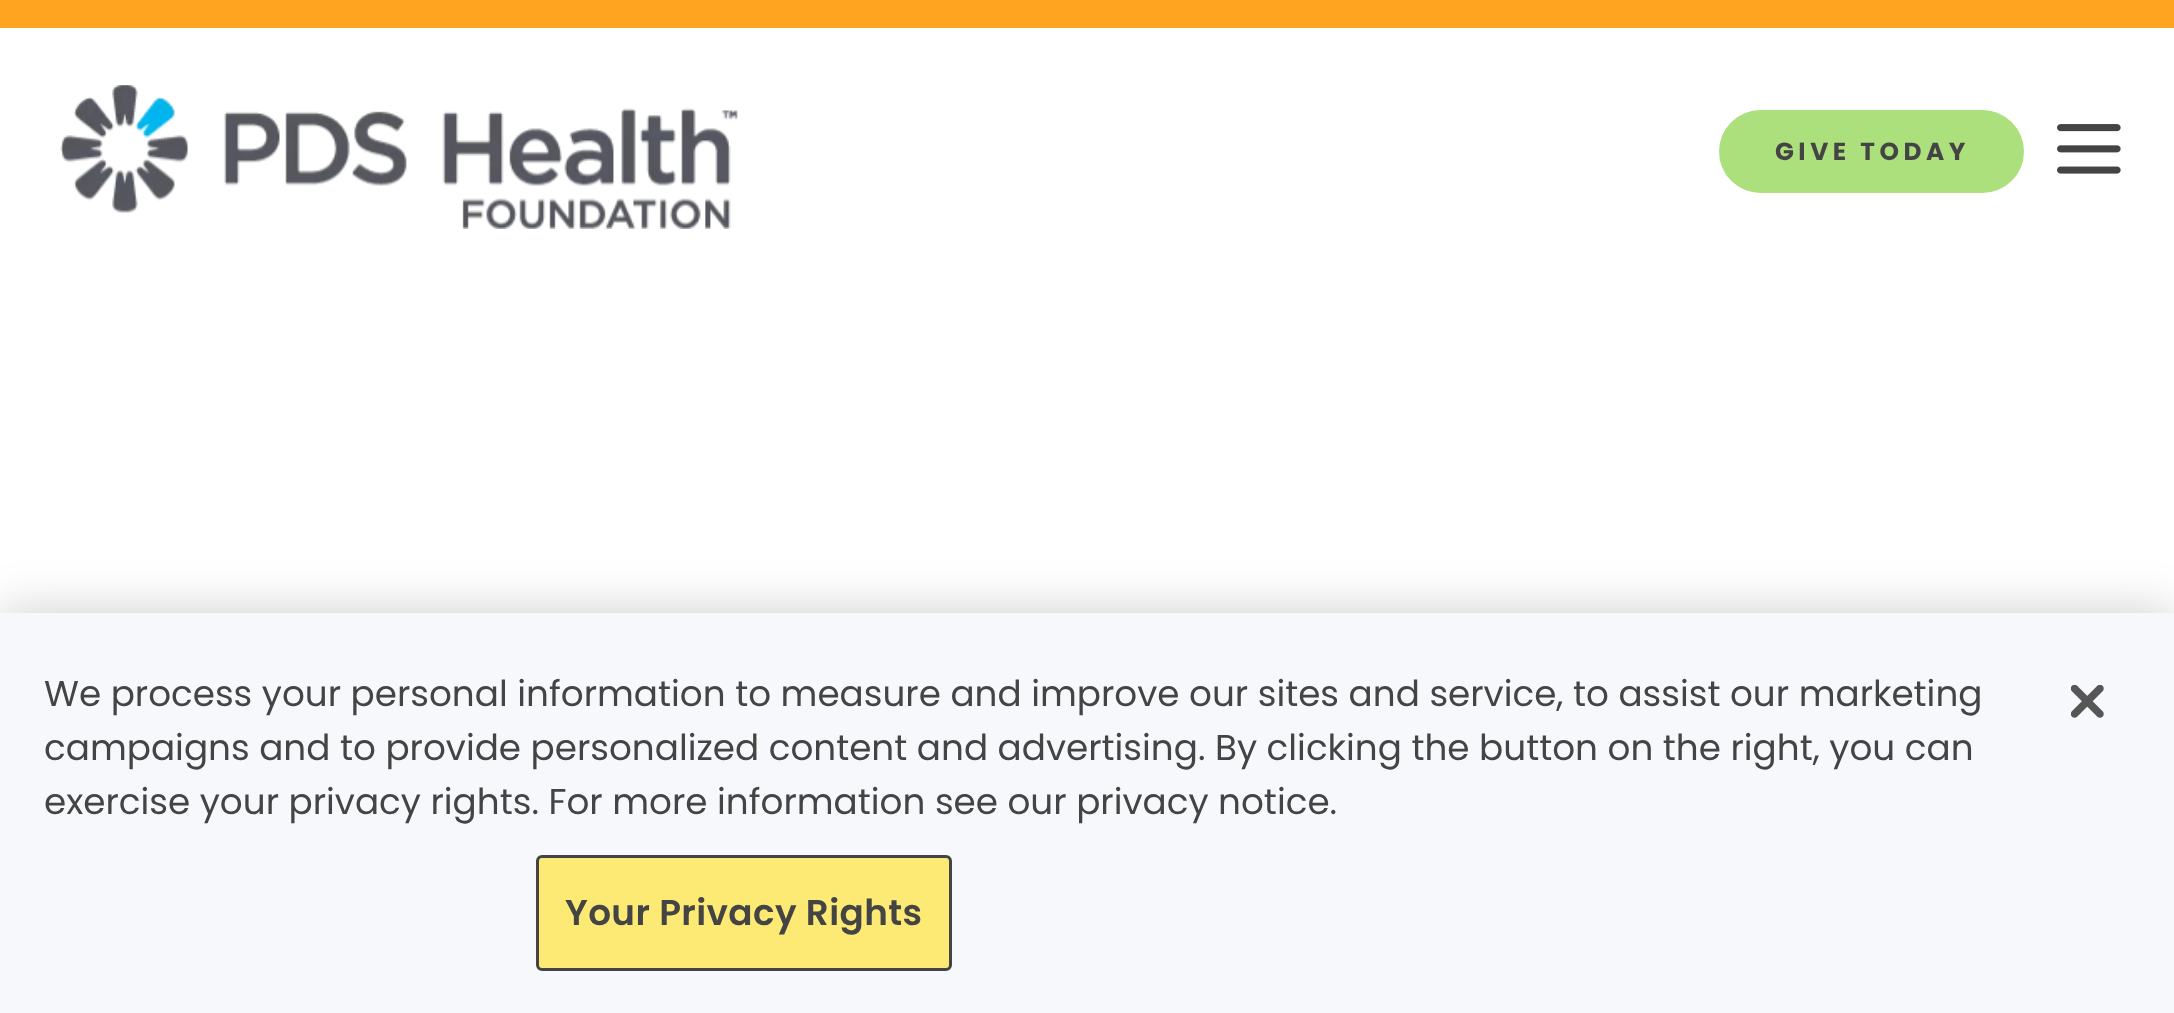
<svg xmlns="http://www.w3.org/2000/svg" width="2174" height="1013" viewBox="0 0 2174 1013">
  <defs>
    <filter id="blur1" x="-50%" y="-200%" width="200%" height="500%"><feGaussianBlur stdDeviation="25"/></filter>
  </defs>
  <rect width="100%" height="100%" fill="#ffffff"/>
  <rect x="0" y="0" width="2174" height="28" fill="#fea421"/>
  <image x="60" y="85" width="678" height="144" href="img1.png"/>
  <rect x="1719" y="110" width="305" height="83" rx="41.5" fill="#ace07c"/>
  <text x="1775" y="160" font-family="Poppins" font-size="24.75" font-weight="bold" letter-spacing="4.5" fill="#444444">GIVE TODAY</text>
  <image x="2057" y="124" width="64" height="50" href="img2.png"/>
  <rect x="0" y="613" width="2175" height="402" fill="#000000" fill-opacity="0.2" filter="url(#blur1)"/>
  <rect x="0" y="613" width="2174" height="400" fill="#f7f8fc"/>
  <text x="44" y="706" font-family="Poppins" font-size="35.77" fill="#444444">We process your personal information to measure and improve our sites and service, to assist our marketing</text>
  <text x="44" y="760" font-family="Poppins" font-size="35.77" fill="#444444">campaigns and to provide personalized content and advertising. By clicking the button on the right, you can</text>
  <text x="44" y="814" font-family="Poppins" font-size="35.77" fill="#444444">exercise your privacy rights. For more information see our privacy notice.</text>
  <rect x="537.5" y="856.5" width="413" height="113" rx="4.5" fill="#fdea74" stroke="#444444" stroke-width="3"/>
  <text x="565" y="925" font-family="Poppins" font-size="35.77" font-weight="600" letter-spacing="0.4" fill="#444444">Your Privacy Rights</text>
  <image x="2071" y="685" width="33" height="33" href="img3.png"/>
</svg>
